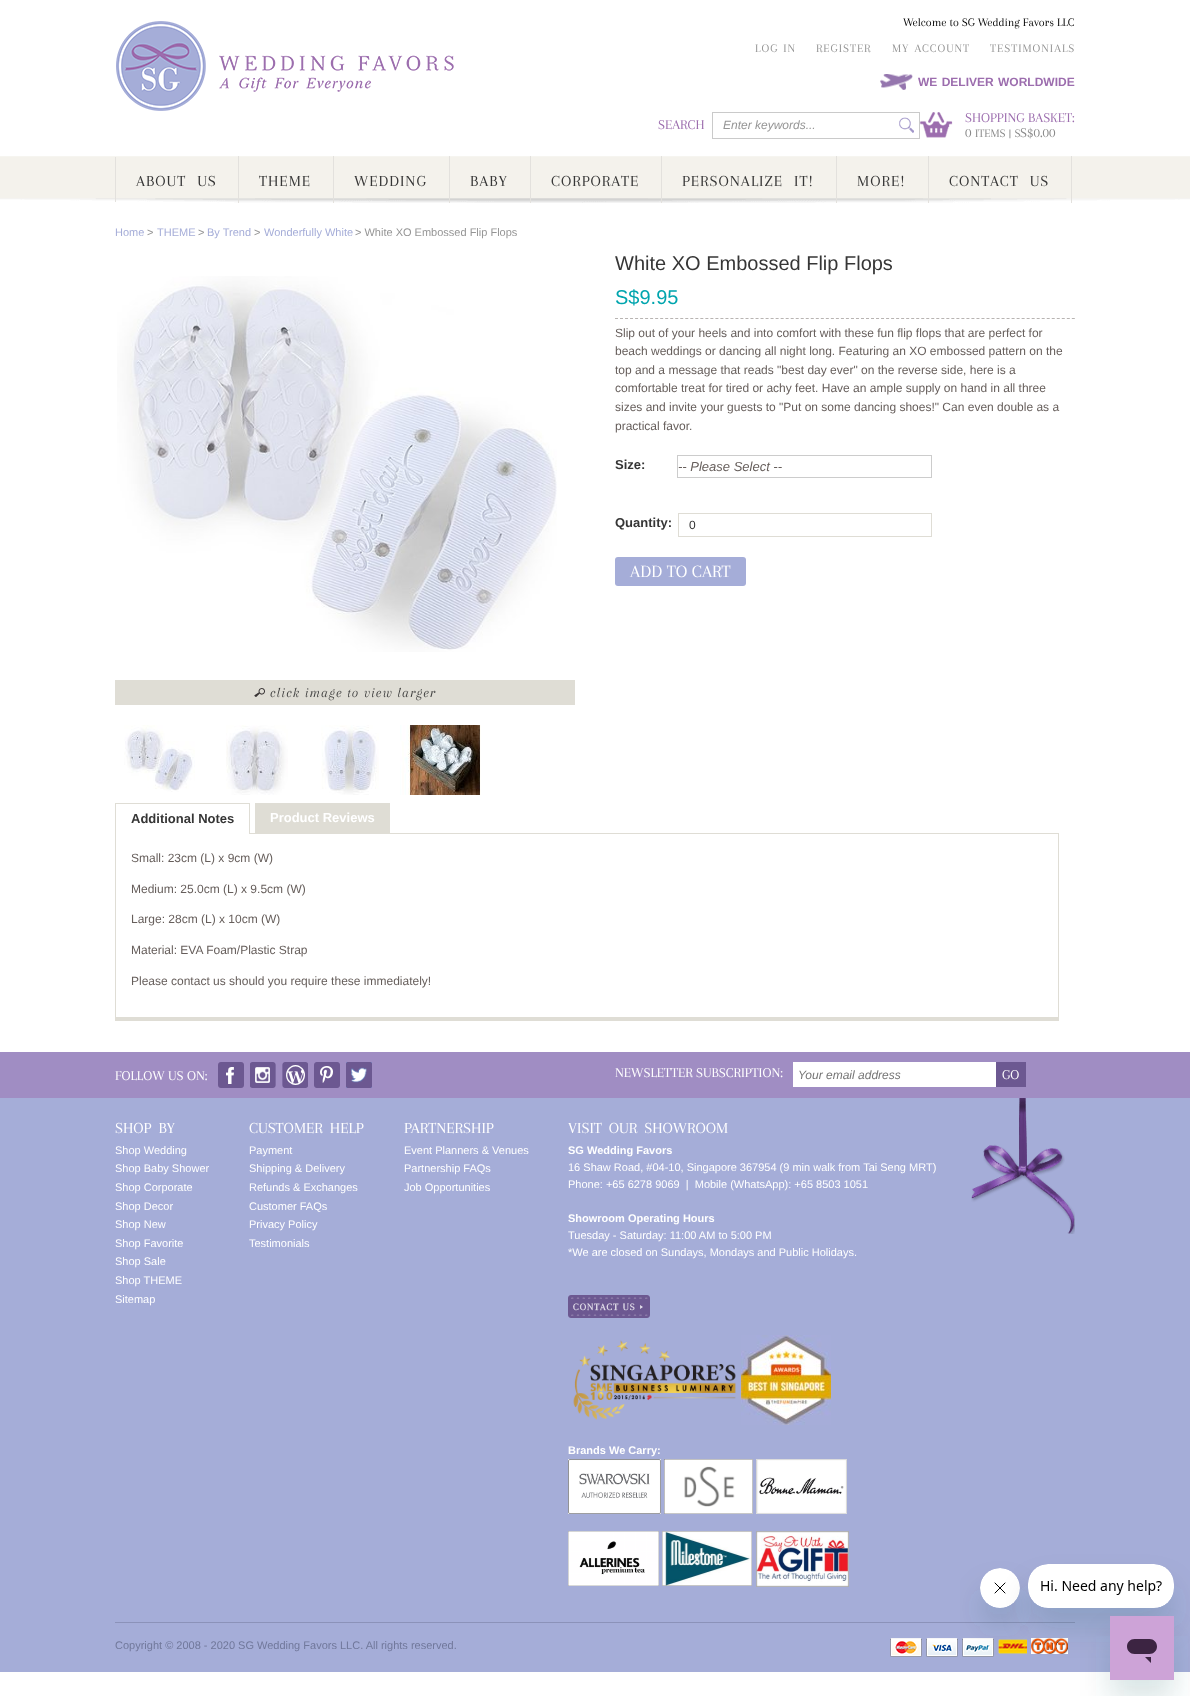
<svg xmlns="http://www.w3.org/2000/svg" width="1190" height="1696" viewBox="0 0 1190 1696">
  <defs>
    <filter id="blur1" x="-50%" y="-200%" width="200%" height="500%"><feGaussianBlur stdDeviation="15"/></filter>
  </defs>
  <rect width="100%" height="100%" fill="#ffffff"/>
  <image x="116" y="21" width="338" height="90" href="img1.png"/>
  <text x="903" y="26" font-family="Arapey" font-size="12" fill="#000000">Welcome to SG Wedding Favors LLC</text>
  <text x="755" y="52" word-spacing="1" font-family="Arapey" font-size="12" letter-spacing="1" fill="#959595">LOG IN</text>
  <text x="816" y="52" font-family="Arapey" font-size="12" letter-spacing="1" fill="#959595">REGISTER</text>
  <text x="892" y="52" word-spacing="1" font-family="Arapey" font-size="12" letter-spacing="1" fill="#959595">MY ACCOUNT</text>
  <text x="990" y="52" font-family="Arapey" font-size="12" letter-spacing="1" fill="#959595">TESTIMONIALS</text>
  <image x="880" y="74" width="33" height="16" href="img2.png"/>
  <text x="918" y="86" word-spacing="1" font-family="Liberation Sans" font-size="12" font-weight="bold" fill="#9c6dae">WE DELIVER WORLDWIDE</text>
  <text x="658" y="129" font-family="Arapey" font-size="14" fill="#9c6dae">SEARCH</text>
  <rect x="712.5" y="112.5" width="207" height="26" fill="none" stroke="#cacaca"/>
  <text x="723" y="129" font-family="Liberation Sans" font-size="12" font-style="italic" fill="#959595">Enter keywords...</text>
  <image x="899" y="117" width="15" height="16" href="img3.png"/>
  <image x="920" y="112" width="33" height="26" href="img4.png"/>
  <text x="965" y="122" font-family="Arapey" font-size="14" fill="#9c6dae">SHOPPING BASKET:</text>
  <text x="965" y="137" font-family="Arapey" font-size="14" fill="#898989">0</text>
  <text x="975" y="137" font-family="Arapey" font-size="12" fill="#898989">ITEMS | S</text>
  <text x="1020" y="137" font-family="Arapey" font-size="14" fill="#898989">S$0.00</text>
  <image x="0" y="156" width="1190" height="47" href="img5.png"/>
  <rect x="115" y="157" width="1" height="45" fill="#e3e1dd"/>
  <rect x="238" y="156" width="1" height="47" fill="#e3e1dd"/>
  <text x="136" y="186" word-spacing="6" font-family="Arapey" font-size="16" letter-spacing="1" fill="#363636">ABOUT US</text>
  <rect x="333" y="156" width="1" height="47" fill="#e3e1dd"/>
  <text x="259" y="186" font-family="Arapey" font-size="16" letter-spacing="1" fill="#363636">THEME</text>
  <rect x="449" y="156" width="1" height="47" fill="#e3e1dd"/>
  <text x="354" y="186" font-family="Arapey" font-size="16" letter-spacing="1" fill="#363636">WEDDING</text>
  <rect x="530" y="156" width="1" height="47" fill="#e3e1dd"/>
  <text x="470" y="186" font-family="Arapey" font-size="16" letter-spacing="1" fill="#363636">BABY</text>
  <rect x="661" y="156" width="1" height="47" fill="#e3e1dd"/>
  <text x="551" y="186" font-family="Arapey" font-size="16" letter-spacing="1" fill="#363636">CORPORATE</text>
  <rect x="836" y="156" width="1" height="47" fill="#e3e1dd"/>
  <text x="682" y="186" word-spacing="6" font-family="Arapey" font-size="16" letter-spacing="1" fill="#363636">PERSONALIZE IT!</text>
  <rect x="928" y="156" width="1" height="47" fill="#e3e1dd"/>
  <text x="857" y="186" font-family="Arapey" font-size="16" letter-spacing="1" fill="#363636">MORE!</text>
  <rect x="1071" y="156" width="1" height="47" fill="#e3e1dd"/>
  <text x="949" y="186" word-spacing="6" font-family="Arapey" font-size="16" letter-spacing="1" fill="#363636">CONTACT US</text>
  <text x="115" y="236" font-family="Liberation Sans" font-size="11" fill="#a5add8">Home</text>
  <text x="147" y="236" font-family="Liberation Sans" font-size="11" fill="#959595">&gt;</text>
  <text x="157" y="236" font-family="Liberation Sans" font-size="11" fill="#a5add8">THEME</text>
  <text x="198" y="236" font-family="Liberation Sans" font-size="11" fill="#959595">&gt;</text>
  <text x="207" y="236" font-family="Liberation Sans" font-size="11" fill="#a5add8">By Trend</text>
  <text x="254" y="236" font-family="Liberation Sans" font-size="11" fill="#959595">&gt;</text>
  <text x="264" y="236" font-family="Liberation Sans" font-size="11" fill="#a5add8">Wonderfully White</text>
  <text x="355" y="236" font-family="Liberation Sans" font-size="11" fill="#959595">&gt; White XO Embossed Flip Flops</text>
  <text x="615" y="270" font-family="Liberation Sans" font-size="20" fill="#363636">White XO Embossed Flip Flops</text>
  <path d="M615 318.5H1075" fill="none" stroke="#b8b4b2" stroke-dasharray="3 2.02"/>
  <text x="615" y="304" font-family="Liberation Sans" font-size="20" fill="#00a5ae">S$9.95</text>
  <text x="615" y="337" font-family="Liberation Sans" font-size="12" fill="#665e5b">Slip out of your heels and into comfort with these fun flip flops that are perfect for</text>
  <text x="615" y="355" font-family="Liberation Sans" font-size="12" fill="#665e5b">beach weddings or dancing all night long. Featuring an XO embossed pattern on the</text>
  <text x="615" y="374" font-family="Liberation Sans" font-size="12" fill="#665e5b">top and a message that reads "best day ever" on the reverse side, here is a</text>
  <text x="615" y="392" font-family="Liberation Sans" font-size="12" fill="#665e5b">comfortable treat for tired or achy feet. Have an ample supply on hand in all three</text>
  <text x="615" y="411" font-family="Liberation Sans" font-size="12" fill="#665e5b">sizes and invite your guests to "Put on some dancing shoes!" Can even double as a</text>
  <text x="615" y="430" font-family="Liberation Sans" font-size="12" fill="#665e5b">practical favor.</text>
  <text x="615" y="469" font-family="Liberation Sans" font-size="13" font-weight="bold" fill="#363636">Size:</text>
  <rect x="677.5" y="455.5" width="254" height="22" fill="none" stroke="#cccccc"/>
  <text x="678" y="471" font-family="Liberation Sans" font-size="13" font-style="italic" fill="#665e5b">-- Please Select --</text>
  <text x="615" y="527" font-family="Liberation Sans" font-size="13" font-weight="bold" fill="#363636">Quantity:</text>
  <rect x="678.5" y="513.5" width="253" height="23" fill="none" stroke="#dfddd5"/>
  <text x="689" y="529" font-family="Liberation Sans" font-size="12" fill="#2f2f2f">0</text>
  <rect x="615" y="557" width="131" height="29" rx="3" fill="#a5add8"/>
  <text x="630" y="577" font-family="Arapey" font-size="18" fill="#ffffff">ADD TO CART</text>
  <image x="117" y="276" width="440" height="376" href="img6.png"/>
  <rect x="115" y="680" width="460" height="25" fill="#dfddd5"/>
  <image x="254" y="688" width="11" height="9" href="img7.png"/>
  <text x="270" y="697" font-family="Arapey" font-size="14" font-style="italic" letter-spacing="1" fill="#363636">click image to view larger</text>
  <image x="124" y="725" width="71" height="67" href="img8.png"/>
  <image x="226" y="725" width="62" height="70" href="img9.png"/>
  <image x="321" y="725" width="58" height="70" href="img10.png"/>
  <image x="400" y="725" width="81" height="70" href="img11.png"/>
  <rect x="115" y="803" width="135" height="1" fill="#dfddd5"/>
  <rect x="249" y="803" width="1" height="31" fill="#dfddd5"/>
  <rect x="250" y="833" width="809" height="1" fill="#dfddd5"/>
  <rect x="1058" y="833" width="1" height="188" fill="#dfddd5"/>
  <rect x="115" y="1017" width="944" height="4" fill="#dfddd5"/>
  <rect x="115" y="833" width="1" height="188" fill="#dfddd5"/>
  <rect x="115" y="803" width="1" height="31" fill="#dfddd5"/>
  <text x="131" y="823" font-family="Liberation Sans" font-size="13" font-weight="bold" fill="#363636">Additional Notes</text>
  <rect x="255" y="803" width="135" height="30" fill="#dfddd5"/>
  <text x="270" y="822" font-family="Liberation Sans" font-size="13" font-weight="bold" fill="#ffffff">Product Reviews</text>
  <text x="131" y="862" font-family="Liberation Sans" font-size="12" fill="#665e5b">Small: 23cm (L) x 9cm (W)</text>
  <text x="131" y="893" font-family="Liberation Sans" font-size="12" fill="#665e5b">Medium: 25.0cm (L) x 9.5cm (W)</text>
  <text x="131" y="923" font-family="Liberation Sans" font-size="12" fill="#665e5b">Large: 28cm (L) x 10cm (W)</text>
  <text x="131" y="954" font-family="Liberation Sans" font-size="12" fill="#665e5b">Material: EVA Foam/Plastic Strap</text>
  <text x="131" y="985" font-family="Liberation Sans" font-size="12" fill="#665e5b">Please contact us should you require these immediately!</text>
  <rect x="0" y="1052" width="1190" height="46" fill="#a08dc3"/>
  <text x="115" y="1080" font-family="Arapey" font-size="14" fill="#ffffff">FOLLOW US ON:</text>
  <image x="218" y="1062" width="26" height="26" href="img12.png"/>
  <image x="250" y="1062" width="26" height="26" href="img13.png"/>
  <image x="282" y="1062" width="26" height="26" href="img14.png"/>
  <image x="314" y="1062" width="26" height="26" href="img15.png"/>
  <image x="346" y="1062" width="26" height="26" href="img16.png"/>
  <text x="615" y="1077" font-family="Arapey" font-size="14" fill="#ffffff">NEWSLETTER SUBSCRIPTION:</text>
  <rect x="793" y="1062" width="203" height="25" fill="#ffffff"/>
  <text x="798" y="1079" font-family="Liberation Sans" font-size="12" font-style="italic" fill="#757575">Your email address</text>
  <rect x="996" y="1062" width="30" height="25" fill="#6c5891"/>
  <text x="1002" y="1079" font-family="Arapey" font-size="14" fill="#ffffff">GO</text>
  <rect x="0" y="1098" width="1190" height="574" fill="#a5add8"/>
  <image x="971" y="1098" width="104" height="136" href="img17.png"/>
  <rect x="115" y="1622" width="960" height="1" fill="#8b92b9"/>
  <text x="115" y="1133" word-spacing="3" font-family="Arapey" font-size="16" fill="#ffffff">SHOP BY</text>
  <text x="115" y="1154" font-family="Liberation Sans" font-size="11" fill="#ffffff">Shop Wedding</text>
  <text x="115" y="1172" font-family="Liberation Sans" font-size="11" fill="#ffffff">Shop Baby Shower</text>
  <text x="115" y="1191" font-family="Liberation Sans" font-size="11" fill="#ffffff">Shop Corporate</text>
  <text x="115" y="1210" font-family="Liberation Sans" font-size="11" fill="#ffffff">Shop Decor</text>
  <text x="115" y="1228" font-family="Liberation Sans" font-size="11" fill="#ffffff">Shop New</text>
  <text x="115" y="1247" font-family="Liberation Sans" font-size="11" fill="#ffffff">Shop Favorite</text>
  <text x="115" y="1265" font-family="Liberation Sans" font-size="11" fill="#ffffff">Shop Sale</text>
  <text x="115" y="1284" font-family="Liberation Sans" font-size="11" fill="#ffffff">Shop THEME</text>
  <text x="115" y="1303" font-family="Liberation Sans" font-size="11" fill="#ffffff">Sitemap</text>
  <text x="249" y="1133" word-spacing="3" font-family="Arapey" font-size="16" fill="#ffffff">CUSTOMER HELP</text>
  <text x="249" y="1154" font-family="Liberation Sans" font-size="11" fill="#ffffff">Payment</text>
  <text x="249" y="1172" font-family="Liberation Sans" font-size="11" fill="#ffffff">Shipping &amp; Delivery</text>
  <text x="249" y="1191" font-family="Liberation Sans" font-size="11" fill="#ffffff">Refunds &amp; Exchanges</text>
  <text x="249" y="1210" font-family="Liberation Sans" font-size="11" fill="#ffffff">Customer FAQs</text>
  <text x="249" y="1228" font-family="Liberation Sans" font-size="11" fill="#ffffff">Privacy Policy</text>
  <text x="249" y="1247" font-family="Liberation Sans" font-size="11" fill="#ffffff">Testimonials</text>
  <text x="404" y="1133" font-family="Arapey" font-size="16" fill="#ffffff">PARTNERSHIP</text>
  <text x="404" y="1154" font-family="Liberation Sans" font-size="11" fill="#ffffff">Event Planners &amp; Venues</text>
  <text x="404" y="1172" font-family="Liberation Sans" font-size="11" fill="#ffffff">Partnership FAQs</text>
  <text x="404" y="1191" font-family="Liberation Sans" font-size="11" fill="#ffffff">Job Opportunities</text>
  <text x="568" y="1133" word-spacing="3" font-family="Arapey" font-size="16" fill="#ffffff">VISIT OUR SHOWROOM</text>
  <text x="568" y="1154" font-family="Liberation Sans" font-size="11" font-weight="bold" fill="#ffffff">SG Wedding Favors</text>
  <text x="568" y="1171" font-family="Liberation Sans" font-size="11" fill="#ffffff">16 Shaw Road, #04-10, Singapore 367954 (9 min walk from Tai Seng MRT)</text>
  <text x="568" y="1188" font-family="Liberation Sans" font-size="11" fill="#ffffff" xml:space="preserve">Phone: +65 6278 9069  |  Mobile (WhatsApp): +65 8503 1051</text>
  <text x="568" y="1222" font-family="Liberation Sans" font-size="11" font-weight="bold" fill="#ffffff">Showroom Operating Hours</text>
  <text x="568" y="1239" font-family="Liberation Sans" font-size="11" fill="#ffffff">Tuesday - Saturday: 11:00 AM to 5:00 PM</text>
  <text x="568" y="1256" font-family="Liberation Sans" font-size="11" fill="#ffffff">*We are closed on Sundays, Mondays and Public Holidays.</text>
  <image x="568" y="1295" width="82" height="23" href="img18.png"/>
  <image x="573" y="1340" width="163" height="80" href="img19.png"/>
  <image x="741" y="1335" width="90" height="90" href="img20.png"/>
  <text x="568" y="1454" font-family="Liberation Sans" font-size="11" font-weight="bold" fill="#ffffff">Brands We Carry:</text>
  <image x="568" y="1459" width="93" height="55" href="img21.png"/>
  <image x="664" y="1459" width="89" height="55" href="img22.png"/>
  <image x="756" y="1459" width="91" height="55" href="img23.png"/>
  <image x="568" y="1531" width="91" height="55" href="img24.png"/>
  <image x="662" y="1531" width="90" height="55" href="img25.png"/>
  <image x="756" y="1531" width="93" height="56" href="img26.png"/>
  <text x="115" y="1649" font-family="Liberation Sans" font-size="11" fill="#71789b">Copyright © 2008 - 2020 SG Wedding Favors LLC. All rights reserved.</text>
  <image x="890" y="1638" width="32" height="19" href="img27.png"/>
  <image x="926" y="1638" width="32" height="19" href="img28.png"/>
  <image x="962" y="1638" width="32" height="19" href="img29.png"/>
  <image x="998" y="1639" width="29" height="15" href="img30.png"/>
  <image x="1031" y="1638" width="37" height="16" href="img31.png"/>
  <rect x="980" y="1588" width="40" height="40" rx="20" fill="#17494d" fill-opacity="0.15" filter="url(#blur1)"/>
  <image x="980" y="1568" width="40" height="40" href="img33.png"/>
  <rect x="1028" y="1584" width="146" height="44" rx="20" fill="#17494d" fill-opacity="0.15" filter="url(#blur1)"/>
  <image x="1028" y="1564" width="146" height="44" href="img32.png"/>
  <rect x="1110" y="1636" width="64" height="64" fill="#17494d" fill-opacity="0.15" filter="url(#blur1)"/>
  <image x="1110" y="1616" width="64" height="64" href="img34.png"/>
</svg>
